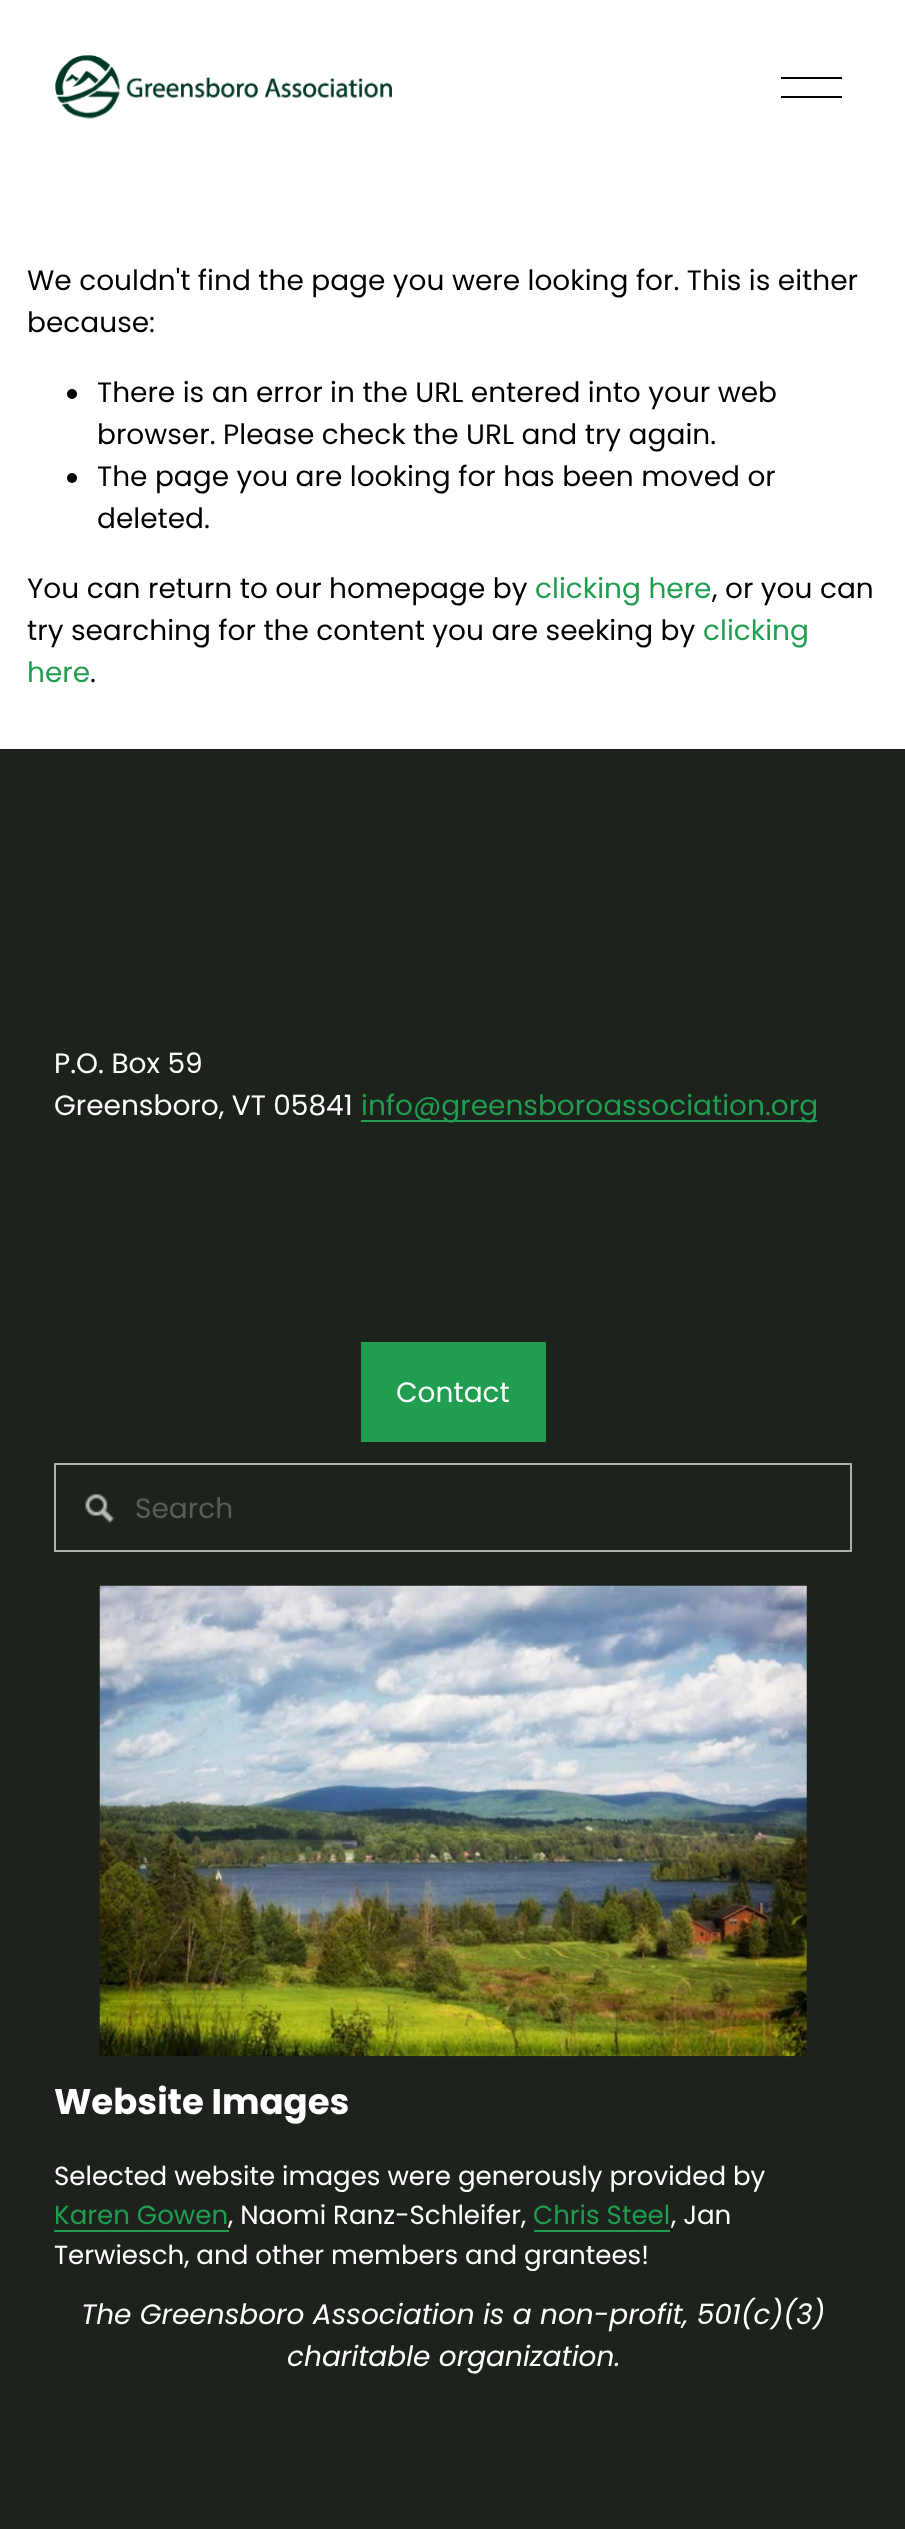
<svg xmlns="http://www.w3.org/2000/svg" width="905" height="2529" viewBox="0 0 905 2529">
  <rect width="100%" height="100%" fill="#ffffff"/>
  <image x="55" y="55" width="337" height="64" href="img1.png"/>
  <rect x="781" y="77" width="61" height="2" fill="#000000"/>
  <rect x="781" y="96" width="61" height="2" fill="#000000"/>
  <text x="27" y="290" font-family="Poppins" font-size="28" fill="#000000">We couldn't find the page you were looking for. This is either</text>
  <text x="27" y="332" font-family="Poppins" font-size="28" fill="#000000">because:</text>
  <circle cx="72" cy="394" r="5" fill="#000000"/>
  <text x="97" y="402" font-family="Poppins" font-size="28" fill="#000000">There is an error in the URL entered into your web</text>
  <text x="97" y="444" font-family="Poppins" font-size="28" fill="#000000">browser. Please check the URL and try again.</text>
  <circle cx="72" cy="478" r="5" fill="#000000"/>
  <text x="97" y="486" font-family="Poppins" font-size="28" fill="#000000">The page you are looking for has been moved or</text>
  <text x="97" y="528" font-family="Poppins" font-size="28" fill="#000000">deleted.</text>
  <text x="27" y="598" font-family="Poppins" font-size="28" fill="#000000">You can return to our homepage by</text>
  <text x="535" y="598" font-family="Poppins" font-size="28" fill="#209d50">clicking here</text>
  <text x="712" y="598" font-family="Poppins" font-size="28" fill="#000000">, or you can</text>
  <text x="27" y="640" font-family="Poppins" font-size="28" fill="#000000">try searching for the content you are seeking by</text>
  <text x="703" y="640" font-family="Poppins" font-size="28" fill="#209d50">clicking</text>
  <text x="27" y="682" font-family="Poppins" font-size="28" fill="#209d50">here</text>
  <text x="90" y="682" font-family="Poppins" font-size="28" fill="#000000">.</text>
  <rect x="0" y="749" width="905" height="1780" fill="#1d231c"/>
  <text x="54" y="1073" font-family="Poppins" font-size="28" fill="#ffffff">P.O. Box 59</text>
  <text x="54" y="1115" font-family="Poppins" font-size="28" fill="#ffffff">Greensboro, VT 05841</text>
  <rect x="361" y="1120" width="456" height="2" fill="#209d50"/>
  <text x="361" y="1115" font-family="Poppins" font-size="28" fill="#209d50">info@greensboroassociation.org</text>
  <rect x="361" y="1342" width="185" height="100" fill="#209d50"/>
  <text x="396" y="1402" font-family="Poppins" font-size="28" fill="#ffffff">Contact</text>
  <image x="85" y="1494" width="30" height="29" href="img2.png"/>
  <rect x="55" y="1464" width="796" height="87" fill="none" stroke="#afb1af" stroke-width="2"/>
  <text x="135" y="1518" font-family="Poppins" font-size="28" fill="#5b5c5a">Search</text>
  <image x="99" y="1585" width="708" height="472" href="img3.png"/>
  <text x="54" y="2114" font-family="Poppins" font-size="35.5" font-weight="bold" fill="#ffffff">Website Images</text>
  <text x="54" y="2185" font-family="Poppins" font-size="26.1" fill="#ffffff">Selected website images were generously provided by</text>
  <text x="54" y="2224" font-family="Poppins" font-size="26.1" fill="#209d50">Karen Gowen</text>
  <rect x="54" y="2230" width="175" height="2" fill="#209d50"/>
  <text x="228" y="2224" font-family="Poppins" font-size="26.1" fill="#ffffff">, Naomi Ranz-Schleifer,</text>
  <text x="533" y="2224" font-family="Poppins" font-size="26.1" fill="#209d50">Chris Steel</text>
  <rect x="534" y="2230" width="136" height="2" fill="#209d50"/>
  <text x="671" y="2224" font-family="Poppins" font-size="26.1" fill="#ffffff">, Jan</text>
  <text x="54" y="2264" font-family="Poppins" font-size="26.1" fill="#ffffff">Terwiesch, and other members and grantees!</text>
  <text x="81" y="2324" font-family="Poppins" font-size="28" font-style="italic" fill="#ffffff">The Greensboro Association is a non-profit, 501(c)(3)</text>
  <text x="287" y="2366" font-family="Poppins" font-size="28" font-style="italic" fill="#ffffff">charitable organization.</text>
</svg>
